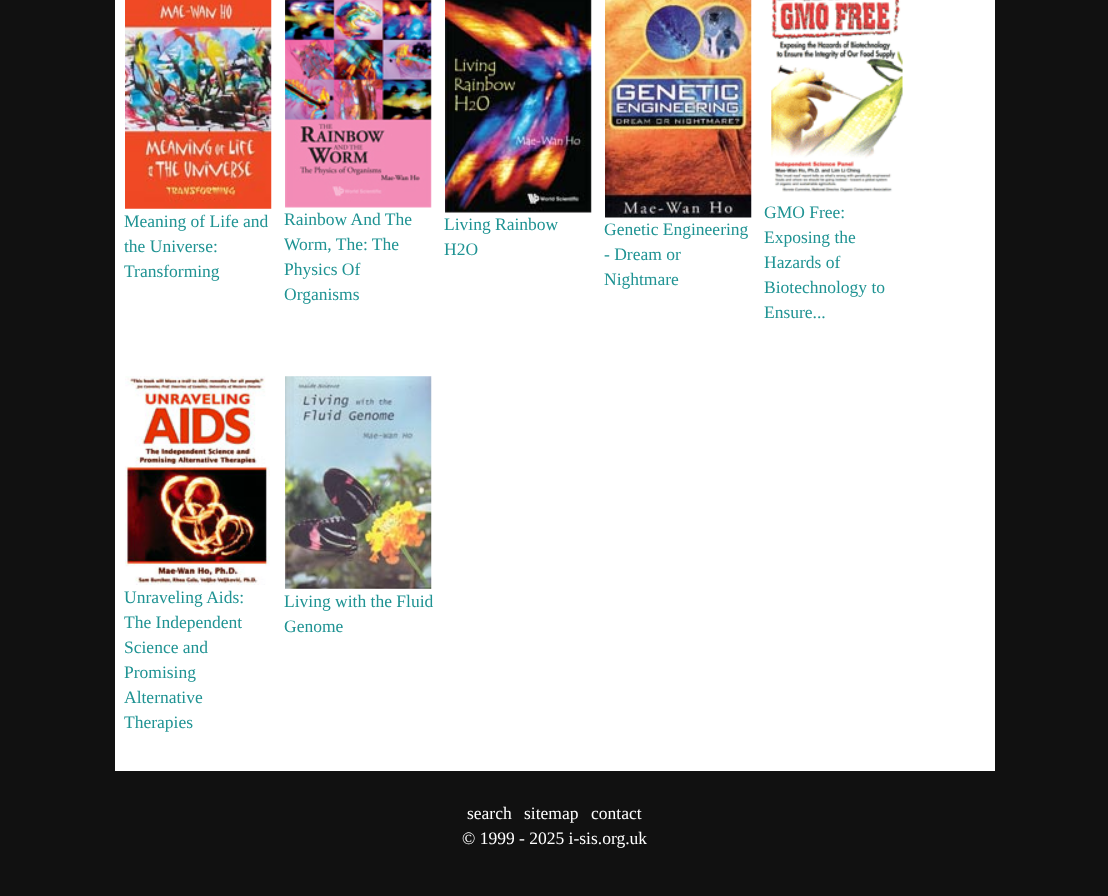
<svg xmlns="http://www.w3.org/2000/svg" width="1108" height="896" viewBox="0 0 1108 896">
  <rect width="100%" height="100%" fill="#111111"/>
  <rect x="115" y="0" width="880" height="771" fill="#ffffff"/>
  <image x="125" y="0" width="147" height="209" href="img1.png"/>
  <text x="124" y="227" font-family="Liberation Serif" font-size="17.5" fill="#1f9393">Meaning of Life and</text>
  <text x="124" y="252" font-family="Liberation Serif" font-size="17.5" fill="#1f9393">the Universe:</text>
  <text x="124" y="277" font-family="Liberation Serif" font-size="17.5" fill="#1f9393">Transforming</text>
  <image x="285" y="0" width="147" height="208" href="img2.png"/>
  <text x="284" y="225" font-family="Liberation Serif" font-size="17.5" fill="#1f9393">Rainbow And The</text>
  <text x="284" y="250" font-family="Liberation Serif" font-size="17.5" fill="#1f9393">Worm, The: The</text>
  <text x="284" y="275" font-family="Liberation Serif" font-size="17.5" fill="#1f9393">Physics Of</text>
  <text x="284" y="300" font-family="Liberation Serif" font-size="17.5" fill="#1f9393">Organisms</text>
  <image x="445" y="0" width="147" height="213" href="img3.png"/>
  <text x="444" y="230" font-family="Liberation Serif" font-size="17.5" fill="#1f9393">Living Rainbow</text>
  <text x="444" y="255" font-family="Liberation Serif" font-size="17.5" fill="#1f9393">H2O</text>
  <image x="605" y="0" width="147" height="218" href="img4.png"/>
  <text x="604" y="235" font-family="Liberation Serif" font-size="17.5" fill="#1f9393">Genetic Engineering</text>
  <text x="604" y="260" font-family="Liberation Serif" font-size="17.5" fill="#1f9393">- Dream or</text>
  <text x="604" y="285" font-family="Liberation Serif" font-size="17.5" fill="#1f9393">Nightmare</text>
  <image x="771" y="0" width="132" height="193" href="img5.png"/>
  <text x="764" y="218" font-family="Liberation Serif" font-size="17.5" fill="#1f9393">GMO Free:</text>
  <text x="764" y="243" font-family="Liberation Serif" font-size="17.5" fill="#1f9393">Exposing the</text>
  <text x="764" y="268" font-family="Liberation Serif" font-size="17.5" fill="#1f9393">Hazards of</text>
  <text x="764" y="293" font-family="Liberation Serif" font-size="17.5" fill="#1f9393">Biotechnology to</text>
  <text x="764" y="318" font-family="Liberation Serif" font-size="17.5" fill="#1f9393">Ensure...</text>
  <image x="125" y="376" width="145" height="209" href="img6.png"/>
  <text x="124" y="603" font-family="Liberation Serif" font-size="17.5" fill="#1f9393">Unraveling Aids:</text>
  <text x="124" y="628" font-family="Liberation Serif" font-size="17.5" fill="#1f9393">The Independent</text>
  <text x="124" y="653" font-family="Liberation Serif" font-size="17.5" fill="#1f9393">Science and</text>
  <text x="124" y="678" font-family="Liberation Serif" font-size="17.5" fill="#1f9393">Promising</text>
  <text x="124" y="703" font-family="Liberation Serif" font-size="17.5" fill="#1f9393">Alternative</text>
  <text x="124" y="728" font-family="Liberation Serif" font-size="17.5" fill="#1f9393">Therapies</text>
  <image x="285" y="376" width="147" height="213" href="img7.png"/>
  <text x="284" y="607" font-family="Liberation Serif" font-size="17.5" fill="#1f9393">Living with the Fluid</text>
  <text x="284" y="632" font-family="Liberation Serif" font-size="17.5" fill="#1f9393">Genome</text>
  <text x="467" y="819" font-family="Liberation Serif" font-size="17.5" fill="#ffffff">search</text>
  <text x="524" y="819" font-family="Liberation Serif" font-size="17.5" fill="#ffffff">sitemap</text>
  <text x="591" y="819" font-family="Liberation Serif" font-size="17.5" fill="#ffffff">contact</text>
  <text x="462" y="844" font-family="Liberation Serif" font-size="17.5" fill="#ffffff">© 1999 - 2025 i-sis.org.uk</text>
</svg>
